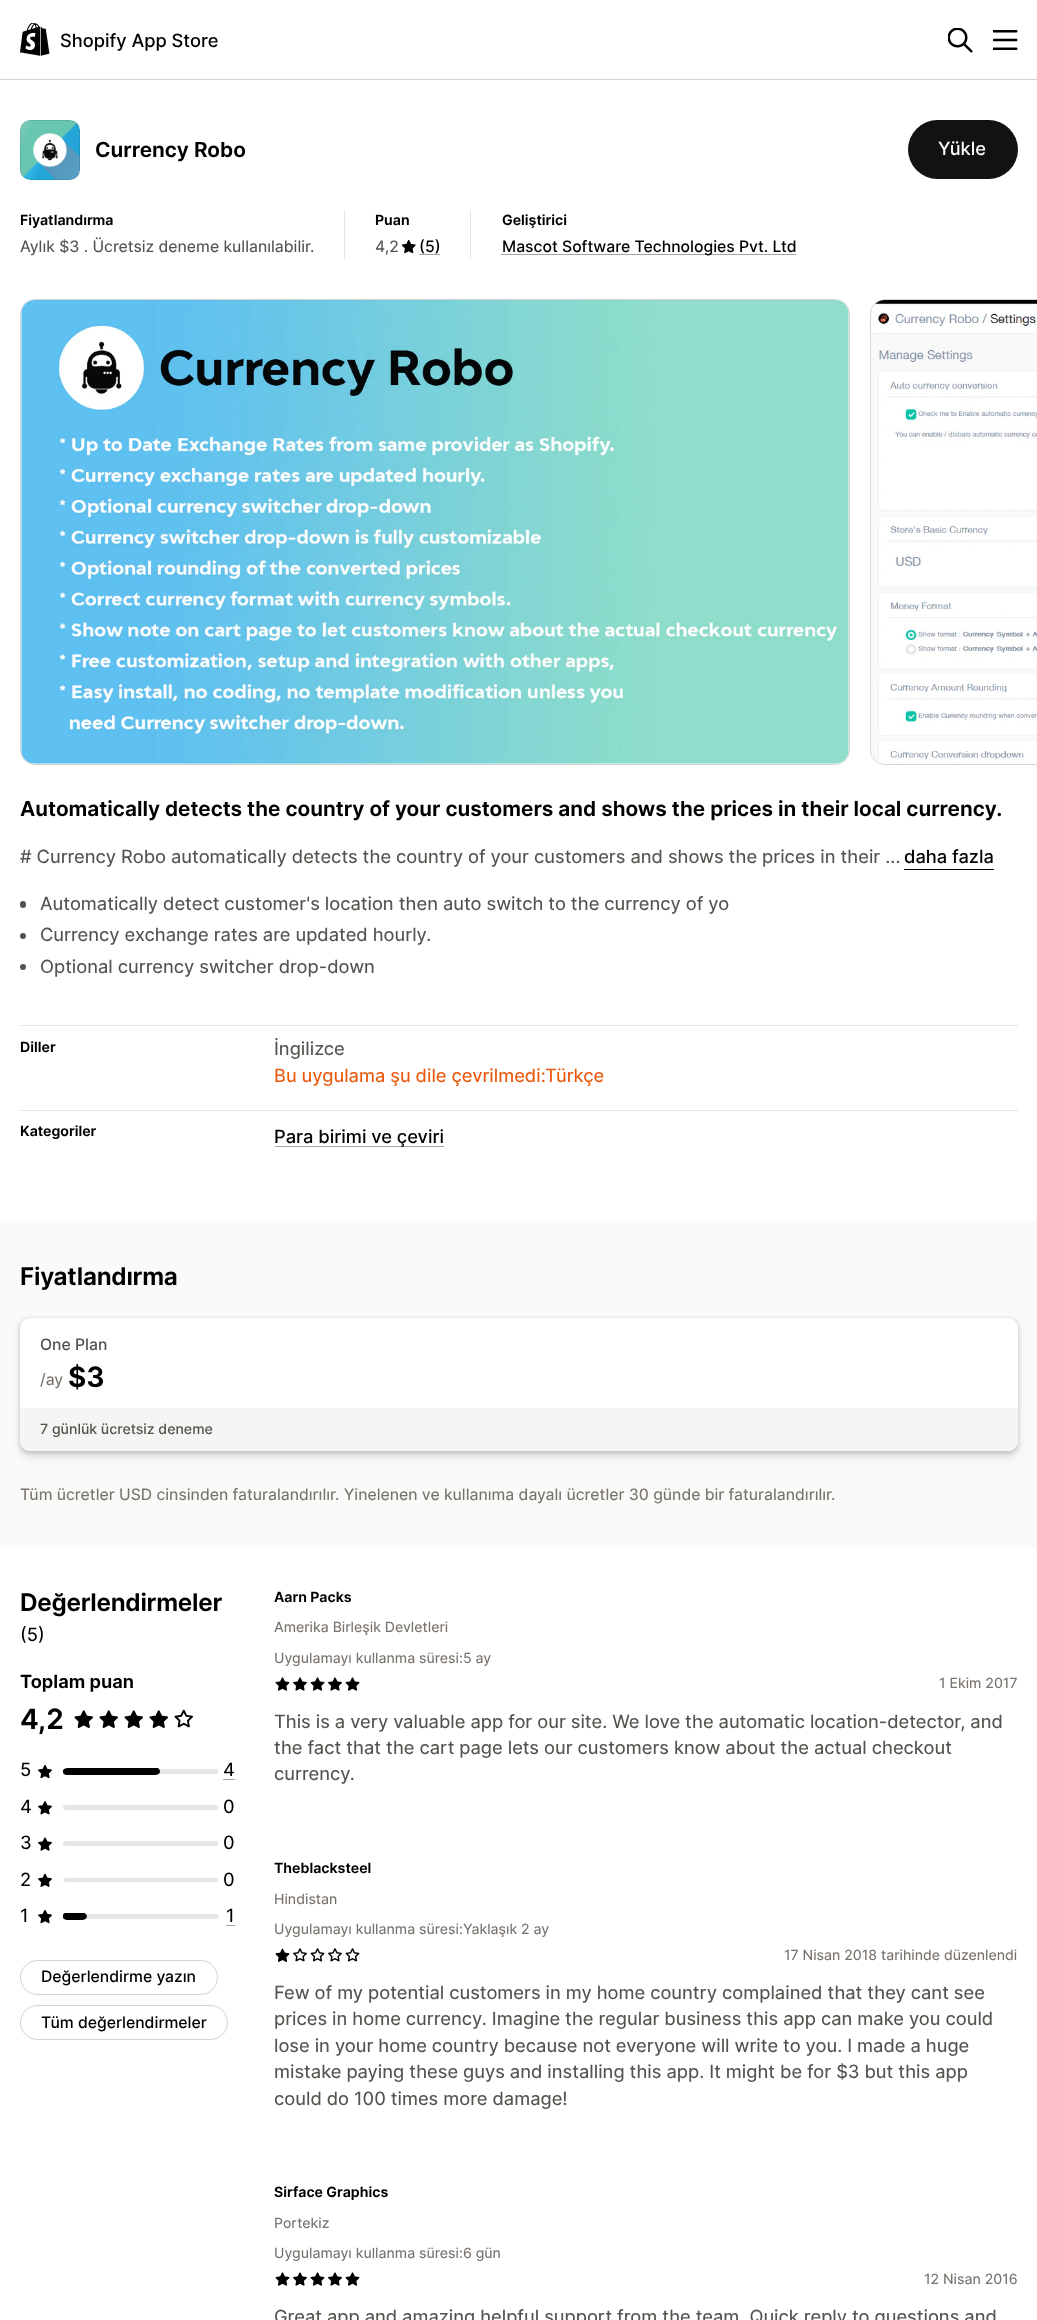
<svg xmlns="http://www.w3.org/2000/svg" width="1037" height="2320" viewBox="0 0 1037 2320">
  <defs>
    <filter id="blur1" x="-50%" y="-200%" width="200%" height="500%"><feGaussianBlur stdDeviation="1"/></filter>
    <filter id="blur2" x="-50%" y="-200%" width="200%" height="500%"><feGaussianBlur stdDeviation="2.5"/></filter>
    <filter id="blur3" x="-50%" y="-200%" width="200%" height="500%"><feGaussianBlur stdDeviation="5"/></filter>
    <clipPath id="clip1"><rect x="40" y="1364" width="958" height="29"/></clipPath>
    <clipPath id="clip2"><rect x="63" y="1768" width="122" height="7"/></clipPath>
  </defs>
  <rect width="100%" height="100%" fill="#ffffff"/>
  <rect x="0" y="79" width="1037" height="1" fill="#d6d3d1"/>
  <image x="20" y="23" width="30" height="33" href="img1.png"/>
  <text x="60" y="47" font-family="Inter" font-size="18.25" font-weight="500" fill="#000000">Shopify App Store</text>
  <image x="948" y="28" width="25" height="25" href="img2.png"/>
  <image x="993" y="30" width="25" height="20" href="img3.png"/>
  <image x="20" y="120" width="60" height="60" href="img4.png"/>
  <rect x="20.5" y="120.5" width="59" height="59" rx="9.5" fill="none" stroke="#000000" stroke-opacity="0.1"/>
  <text x="95" y="157" font-family="Inter" font-size="20.75" font-weight="600" fill="#000000">Currency Robo</text>
  <rect x="344" y="210" width="1" height="49" fill="#e7e5e4"/>
  <text x="20" y="225" font-family="Inter" font-size="14.1" font-weight="600" fill="#000000">Fiyatlandırma</text>
  <text x="20" y="252" font-family="Inter" font-size="15.75" fill="#56524e">Aylık $3 . Ücretsiz deneme kullanılabilir.</text>
  <rect x="470" y="210" width="1" height="49" fill="#e7e5e4"/>
  <text x="375" y="225" font-family="Inter" font-size="14.1" font-weight="600" fill="#000000">Puan</text>
  <text x="375" y="252" font-family="Inter" font-size="15.75" fill="#56524e">4,2</text>
  <image x="401" y="240" width="15" height="14" href="img5.png"/>
  <text x="419" y="252" font-family="Inter" font-size="15.75" font-weight="500" fill="#000000">(5)</text>
  <rect x="419" y="254" width="21" height="1" fill="#a8a29f"/>
  <text x="502" y="225" font-family="Inter" font-size="14.1" font-weight="600" fill="#000000">Geliştirici</text>
  <rect x="501" y="254" width="295" height="1" fill="#a8a29f"/>
  <text x="502" y="252" font-family="Inter" font-size="15.75" font-weight="500" fill="#000000">Mascot Software Technologies Pvt. Ltd</text>
  <rect x="908" y="120" width="110" height="59" rx="29.5" fill="#131111"/>
  <text x="938" y="155" font-family="Inter" font-size="18.25" font-weight="500" fill="#ffffff">Yükle</text>
  <rect x="20.5" y="299.5" width="829" height="465" rx="14.5" fill="none" stroke="#d6d3d1"/>
  <image x="21" y="300" width="828" height="464" href="img6.png"/>
  <rect x="870.5" y="299.5" width="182" height="465" rx="14.5" fill="none" stroke="#d6d3d1"/>
  <image x="871" y="300" width="166" height="464" href="img7.png"/>
  <text x="20" y="816" font-family="Inter" font-size="20.75" font-weight="600" fill="#000000">Automatically detects the country of your customers and shows the prices in their local currency.</text>
  <text x="20" y="863" font-family="Inter" font-size="18.25" fill="#56524e"># Currency Robo automatically detects the country of your customers and shows the prices in their ...</text>
  <text x="904" y="863" font-family="Inter" font-size="18.25" font-weight="500" fill="#000000">daha fazla</text>
  <rect x="904" y="869" width="90" height="1" fill="#000000"/>
  <rect x="20" y="901" width="6" height="7" rx="3" fill="#56524e"/>
  <text x="40" y="910" font-family="Inter" font-size="18.25" fill="#56524e">Automatically detect customer's location then auto switch to the currency of yo</text>
  <circle cx="23" cy="936" r="3" fill="#56524e"/>
  <text x="40" y="941" font-family="Inter" font-size="18.25" fill="#56524e">Currency exchange rates are updated hourly.</text>
  <circle cx="23" cy="967" r="3" fill="#56524e"/>
  <text x="40" y="973" font-family="Inter" font-size="18.25" fill="#56524e">Optional currency switcher drop-down</text>
  <rect x="20" y="1025" width="998" height="1" fill="#e7e5e4"/>
  <text x="20" y="1052" font-family="Inter" font-size="14.1" font-weight="600" fill="#000000">Diller</text>
  <text x="274" y="1055" font-family="Inter" font-size="18.25" fill="#56524e">İngilizce</text>
  <text x="274" y="1082" font-family="Inter" font-size="18.25" fill="#ea580c">Bu uygulama şu dile çevrilmedi:Türkçe</text>
  <rect x="20" y="1110" width="998" height="1" fill="#e7e5e4"/>
  <text x="20" y="1136" font-family="Inter" font-size="14.1" font-weight="600" fill="#000000">Kategoriler</text>
  <rect x="275" y="1146" width="169" height="1" fill="#a8a29f"/>
  <text x="274" y="1143" font-family="Inter" font-size="18.25" font-weight="500" fill="#000000">Para birimi ve çeviri</text>
  <rect x="0" y="1221" width="1037" height="327" fill="#fafaf9"/>
  <text x="20" y="1285" font-family="Inter" font-size="24.25" font-weight="600" letter-spacing="-0.25" fill="#000000">Fiyatlandırma</text>
  <rect x="19" y="1318" width="1000" height="136" rx="11" fill="#000000" fill-opacity="0.07" filter="url(#blur1)"/>
  <rect x="19" y="1319" width="1000" height="136" rx="11" fill="#000000" fill-opacity="0.07" filter="url(#blur2)"/>
  <rect x="19" y="1321" width="1000" height="137" rx="11" fill="#000000" fill-opacity="0.07" filter="url(#blur3)"/>
  <rect x="20" y="1318" width="998" height="133" rx="10" fill="#ffffff"/>
  <text x="40" y="1350" font-family="Inter" font-size="15.75" font-weight="500" fill="#56524e">One Plan</text>
  <text x="40" y="1385" font-family="Inter" font-size="15.75" fill="#78726d">/ay</text>
  <g clip-path="url(#clip1)">
    <text x="68" y="1387" font-family="Inter" font-size="28" font-weight="600" fill="#000000">$3</text>
  </g>
  <path d="M20 1408H1018V1441C1018 1446.5 1013.5 1451 1008 1451H30C24.5 1451 20 1446.5 20 1441Z" fill="#f5f5f4"/>
  <text x="40" y="1434" font-family="Inter" font-size="14.1" font-weight="500" fill="#56524e">7 günlük ücretsiz deneme</text>
  <text x="20" y="1500" font-family="Inter" font-size="15.75" fill="#78726d">Tüm ücretler USD cinsinden faturalandırılır. Yinelenen ve kullanıma dayalı ücretler 30 günde bir faturalandırılır.</text>
  <text x="20" y="1611" font-family="Inter" font-size="24.25" font-weight="600" letter-spacing="-0.25" fill="#000000">Değerlendirmeler</text>
  <text x="20" y="1641" font-family="Inter" font-size="18.25" fill="#000000">(5)</text>
  <text x="20" y="1688" font-family="Inter" font-size="18.25" font-weight="600" fill="#000000">Toplam puan</text>
  <text x="20" y="1729" font-family="Inter" font-size="28" font-weight="600" fill="#000000">4,2</text>
  <image x="74" y="1710" width="19" height="18" href="img8.png"/>
  <image x="99" y="1710" width="19" height="18" href="img8.png"/>
  <image x="124" y="1710" width="19" height="18" href="img8.png"/>
  <image x="149" y="1710" width="19" height="18" href="img8.png"/>
  <image x="174" y="1709" width="19" height="19" href="img9.png"/>
  <text x="20" y="1776" font-family="Inter" font-size="18.25" fill="#000000">5</text>
  <image x="38" y="1765" width="14" height="14" href="img10.png"/>
  <path d="M66 1769H216C220 1769 220 1774 216 1774H66C62 1774 62 1769 66 1769Z" fill="#e7e5e4"/>
  <g clip-path="url(#clip2)">
    <path d="M68 1768H157C159 1768 160 1770 160 1772C159 1777 146 1775 140 1775H68C61 1775 61 1768 68 1768Z" fill="#000000"/>
  </g>
  <rect x="218" y="1770" width="1" height="3" fill="#ffffff"/>
  <text x="223" y="1776" font-family="Inter" font-size="18.25" fill="#000000">4</text>
  <rect x="223" y="1779" width="12" height="1" fill="#a8a29f"/>
  <text x="20" y="1813" font-family="Inter" font-size="18.25" fill="#000000">4</text>
  <image x="38" y="1801" width="14" height="14" href="img11.png"/>
  <path d="M66 1805H216C220 1805 220 1810 216 1810H66C62 1810 62 1805 66 1805Z" fill="#e7e5e4"/>
  <rect x="218" y="1806" width="1" height="3" fill="#ffffff"/>
  <text x="223" y="1813" font-family="Inter" font-size="18.25" fill="#000000">0</text>
  <text x="20" y="1849" font-family="Inter" font-size="18.25" fill="#000000">3</text>
  <image x="38" y="1837" width="14" height="14" href="img12.png"/>
  <path d="M66 1841H216C220 1841 220 1846 216 1846H66C62 1846 62 1841 66 1841Z" fill="#e7e5e4"/>
  <rect x="218" y="1842" width="1" height="3" fill="#ffffff"/>
  <text x="223" y="1849" font-family="Inter" font-size="18.25" fill="#000000">0</text>
  <text x="20" y="1886" font-family="Inter" font-size="18.25" fill="#000000">2</text>
  <image x="38" y="1873" width="14" height="14" href="img13.png"/>
  <path d="M66 1878H216C220 1878 220 1882 216 1882H66C62 1882 62 1878 66 1878Z" fill="#e7e5e4"/>
  <rect x="218" y="1878" width="1" height="4" fill="#ffffff"/>
  <text x="223" y="1886" font-family="Inter" font-size="18.25" fill="#000000">0</text>
  <text x="20" y="1922" font-family="Inter" font-size="18.25" fill="#000000">1</text>
  <image x="38" y="1910" width="14" height="14" href="img10.png"/>
  <path d="M66 1914H216C220 1914 220 1919 216 1919H66C62 1919 62 1914 66 1914Z" fill="#e7e5e4"/>
  <image x="63" y="1913" width="24" height="7" href="img14.png"/>
  <text x="226" y="1922" font-family="Inter" font-size="18.25" fill="#000000">1</text>
  <rect x="226" y="1925" width="9" height="1" fill="#a8a29f"/>
  <rect x="20.5" y="1960.5" width="197" height="34" rx="17" fill="none" stroke="#d6d3d1"/>
  <text x="41" y="1982" font-family="Inter" font-size="15.75" font-weight="500" fill="#000000">Değerlendirme yazın</text>
  <rect x="20.5" y="2005.5" width="207" height="34" rx="17" fill="none" stroke="#d6d3d1"/>
  <text x="41" y="2028" font-family="Inter" font-size="15.75" font-weight="500" fill="#000000">Tüm değerlendirmeler</text>
  <text x="274" y="1602" font-family="Inter" font-size="14.1" font-weight="600" fill="#000000">Aarn Packs</text>
  <text x="274" y="1632" font-family="Inter" font-size="14.1" fill="#78726d">Amerika Birleşik Devletleri</text>
  <text x="274" y="1663" font-family="Inter" font-size="14.1" fill="#78726d">Uygulamayı kullanma süresi:5 ay</text>
  <image x="275" y="1677" width="15" height="14" href="img15.png"/>
  <image x="293" y="1677" width="14" height="14" href="img12.png"/>
  <image x="310" y="1677" width="15" height="14" href="img15.png"/>
  <image x="328" y="1677" width="14" height="14" href="img12.png"/>
  <image x="345" y="1677" width="15" height="14" href="img15.png"/>
  <text x="939" y="1688" font-family="Inter" font-size="14.1" fill="#78726d">1 Ekim 2017</text>
  <text x="274" y="1728" font-family="Inter" font-size="18.25" fill="#56524e">This is a very valuable app for our site. We love the automatic location-detector, and</text>
  <text x="274" y="1754" font-family="Inter" font-size="18.25" fill="#56524e">the fact that the cart page lets our customers know about the actual checkout</text>
  <text x="274" y="1780" font-family="Inter" font-size="18.25" fill="#56524e">currency.</text>
  <text x="274" y="1873" font-family="Inter" font-size="14.1" font-weight="600" fill="#000000">Theblacksteel</text>
  <text x="274" y="1904" font-family="Inter" font-size="14.1" fill="#78726d">Hindistan</text>
  <text x="274" y="1934" font-family="Inter" font-size="14.1" fill="#78726d">Uygulamayı kullanma süresi:Yaklaşık 2 ay</text>
  <image x="275" y="1948" width="15" height="14" href="img16.png"/>
  <image x="293" y="1948" width="14" height="14" href="img17.png"/>
  <image x="310" y="1948" width="15" height="14" href="img18.png"/>
  <image x="328" y="1948" width="14" height="14" href="img17.png"/>
  <image x="345" y="1948" width="15" height="14" href="img18.png"/>
  <text x="784" y="1960" font-family="Inter" font-size="14.1" fill="#78726d">17 Nisan 2018 tarihinde düzenlendi</text>
  <text x="274" y="1999" font-family="Inter" font-size="18.25" fill="#56524e">Few of my potential customers in my home country complained that they cant see</text>
  <text x="274" y="2025" font-family="Inter" font-size="18.25" fill="#56524e">prices in home currency. Imagine the regular business this app can make you could</text>
  <text x="274" y="2052" font-family="Inter" font-size="18.25" fill="#56524e">lose in your home country because not everyone will write to you. I made a huge</text>
  <text x="274" y="2078" font-family="Inter" font-size="18.25" fill="#56524e">mistake paying these guys and installing this app. It might be for $3 but this app</text>
  <text x="274" y="2105" font-family="Inter" font-size="18.25" fill="#56524e">could do 100 times more damage!</text>
  <text x="274" y="2197" font-family="Inter" font-size="14.1" font-weight="600" fill="#000000">Sirface Graphics</text>
  <text x="274" y="2228" font-family="Inter" font-size="14.1" fill="#78726d">Portekiz</text>
  <text x="274" y="2258" font-family="Inter" font-size="14.1" fill="#78726d">Uygulamayı kullanma süresi:6 gün</text>
  <image x="275" y="2272" width="15" height="14" href="img15.png"/>
  <image x="293" y="2272" width="14" height="14" href="img12.png"/>
  <image x="310" y="2272" width="15" height="14" href="img15.png"/>
  <image x="328" y="2272" width="14" height="14" href="img12.png"/>
  <image x="345" y="2272" width="15" height="14" href="img15.png"/>
  <text x="924" y="2284" font-family="Inter" font-size="14.1" fill="#78726d">12 Nisan 2016</text>
  <text x="274" y="2323" font-family="Inter" font-size="18.25" fill="#56524e">Great app and amazing helpful support from the team. Quick reply to questions and</text>
</svg>
